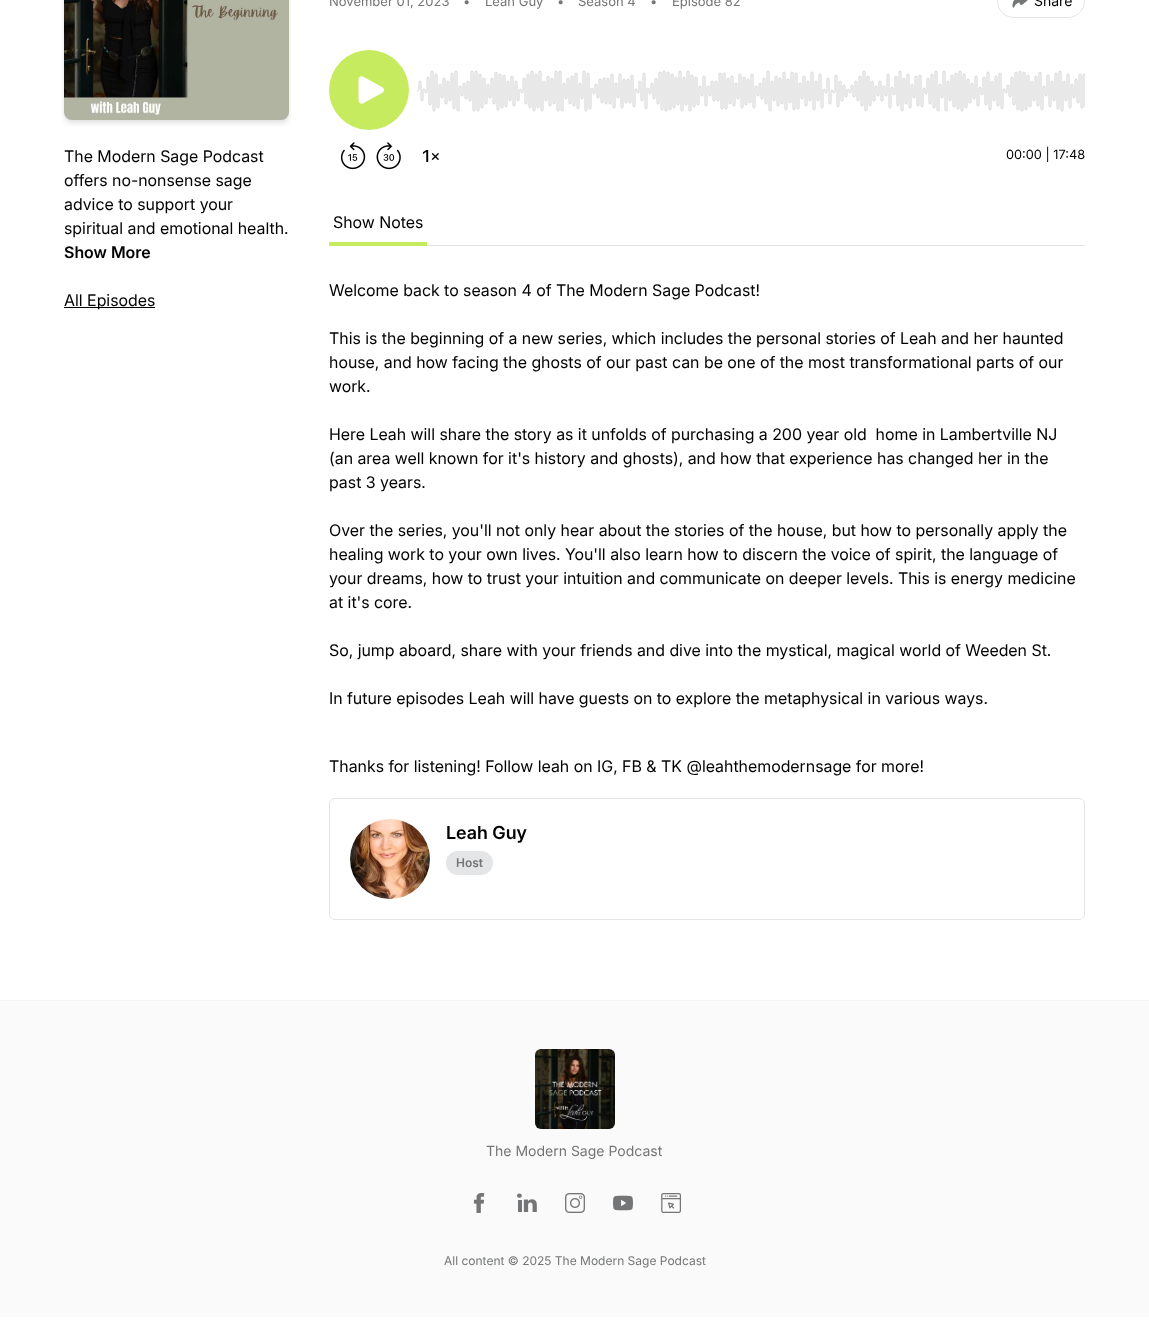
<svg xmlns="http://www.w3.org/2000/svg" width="1149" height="1326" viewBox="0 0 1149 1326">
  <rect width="100%" height="100%" fill="#ffffff"/>
  <image x="62" y="0" width="229" height="126" href="img1.png"/>
  <text x="64" y="162" font-family="Inter" font-size="16" fill="#000000">The Modern Sage Podcast</text>
  <text x="64" y="186" font-family="Inter" font-size="16" fill="#000000">offers no-nonsense sage</text>
  <text x="64" y="210" font-family="Inter" font-size="16" fill="#000000">advice to support your</text>
  <text x="64" y="234" font-family="Inter" font-size="16" fill="#000000">spiritual and emotional health.</text>
  <text x="64" y="258" font-family="Inter" font-size="16" font-weight="600" fill="#000000">Show More</text>
  <rect x="64" y="307" width="91" height="1" fill="#000000"/>
  <text x="64" y="306" font-family="Inter" font-size="16" fill="#000000">All Episodes</text>
  <text x="329" y="6" font-family="'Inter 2'" font-size="13" fill="#747576">November 01, 2023</text>
  <text x="463" y="6" font-family="'Inter 2'" font-size="13" fill="#747576">•</text>
  <text x="485" y="6" font-family="'Inter 2'" font-size="13" fill="#747576">Leah Guy</text>
  <text x="557" y="6" font-family="'Inter 2'" font-size="13" fill="#747576">•</text>
  <text x="578" y="6" font-family="'Inter 2'" font-size="13" fill="#747576">Season 4</text>
  <text x="650" y="6" font-family="'Inter 2'" font-size="13" fill="#747576">•</text>
  <text x="672" y="6" font-family="'Inter 2'" font-size="13" fill="#747576">Episode 82</text>
  <rect x="997.5" y="-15.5" width="87" height="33" rx="16.5" fill="none" stroke="#e4e5e6"/>
  <image x="1012" y="0" width="16" height="8" href="img2.png"/>
  <text x="1034" y="6" font-family="'Inter 2'" font-size="14" fill="#000000">Share</text>
  <image x="340" y="142" width="26" height="28" href="img3.png"/>
  <image x="376" y="142" width="25" height="28" href="img4.png"/>
  <image x="423" y="150" width="16" height="12" href="img5.png"/>
  <circle cx="369" cy="90" r="40" fill="#c7eb5e"/>
  <image x="358" y="76" width="26" height="28" href="img6.png"/>
  <image x="417" y="70" width="668" height="42" href="img7.png"/>
  <text x="1006" y="159" font-family="'Inter 2'" font-size="12.75" fill="#000000">00:00 | 17:48</text>
  <rect x="427" y="245" width="658" height="1" fill="#e4e5e6"/>
  <rect x="329" y="242" width="98" height="4" fill="#c7eb5e"/>
  <text x="333" y="228" font-family="Inter" font-size="16" fill="#000000">Show Notes</text>
  <text x="329" y="296" font-family="Inter" font-size="16" fill="#000000">Welcome back to season 4 of The Modern Sage Podcast!</text>
  <text x="329" y="344" font-family="Inter" font-size="16" fill="#000000">This is the beginning of a new series, which includes the personal stories of Leah and her haunted</text>
  <text x="329" y="368" font-family="Inter" font-size="16" fill="#000000">house, and how facing the ghosts of our past can be one of the most transformational parts of our</text>
  <text x="329" y="392" font-family="Inter" font-size="16" fill="#000000">work.</text>
  <text x="329" y="440" font-family="Inter" font-size="16" fill="#000000" xml:space="preserve">Here Leah will share the story as it unfolds of purchasing a 200 year old  home in Lambertville NJ</text>
  <text x="329" y="464" font-family="Inter" font-size="16" fill="#000000">(an area well known for it's history and ghosts), and how that experience has changed her in the</text>
  <text x="329" y="488" font-family="Inter" font-size="16" fill="#000000">past 3 years.</text>
  <text x="329" y="536" font-family="Inter" font-size="16" fill="#000000">Over the series, you'll not only hear about the stories of the house, but how to personally apply the</text>
  <text x="329" y="560" font-family="Inter" font-size="16" fill="#000000">healing work to your own lives. You'll also learn how to discern the voice of spirit, the language of</text>
  <text x="329" y="584" font-family="Inter" font-size="16" fill="#000000">your dreams, how to trust your intuition and communicate on deeper levels. This is energy medicine</text>
  <text x="329" y="608" font-family="Inter" font-size="16" fill="#000000">at it's core.</text>
  <text x="329" y="656" font-family="Inter" font-size="16" fill="#000000">So, jump aboard, share with your friends and dive into the mystical, magical world of Weeden St.</text>
  <text x="329" y="704" font-family="Inter" font-size="16" fill="#000000">In future episodes Leah will have guests on to explore the metaphysical in various ways.</text>
  <text x="329" y="772" font-family="Inter" font-size="16" fill="#000000">Thanks for listening! Follow leah on IG, FB &amp; TK @leahthemodernsage for more!</text>
  <rect x="329.5" y="798.5" width="755" height="121" rx="5.5" fill="none" stroke="#e4e5e6"/>
  <image x="350" y="819" width="80" height="80" href="img8.png"/>
  <text x="446" y="839" font-family="'Inter 2'" font-size="18" font-weight="600" fill="#000000">Leah Guy</text>
  <rect x="446" y="851" width="47" height="24" rx="12" fill="#e4e5e6"/>
  <text x="456" y="867" font-family="'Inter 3'" font-size="12" font-weight="600" fill="#747576">Host</text>
  <rect x="0" y="1001" width="1149" height="316" fill="#fafafa"/>
  <rect x="0" y="1000" width="1149" height="1" fill="#f4f4f4"/>
  <image x="535" y="1049" width="80" height="80" href="img9.png"/>
  <text x="486" y="1156" font-family="'Inter 2'" font-size="14" fill="#747576">The Modern Sage Podcast</text>
  <image x="473" y="1193" width="12" height="20" href="img10.png"/>
  <image x="517" y="1193" width="20" height="19" href="img11.png"/>
  <image x="565" y="1193" width="20" height="20" href="img12.png"/>
  <image x="613" y="1195" width="20" height="16" href="img13.png"/>
  <image x="661" y="1193" width="20" height="20" href="img14.png"/>
  <text x="444" y="1265" font-family="'Inter 2'" font-size="12" fill="#747576">All content © 2025 The Modern Sage Podcast</text>
</svg>
